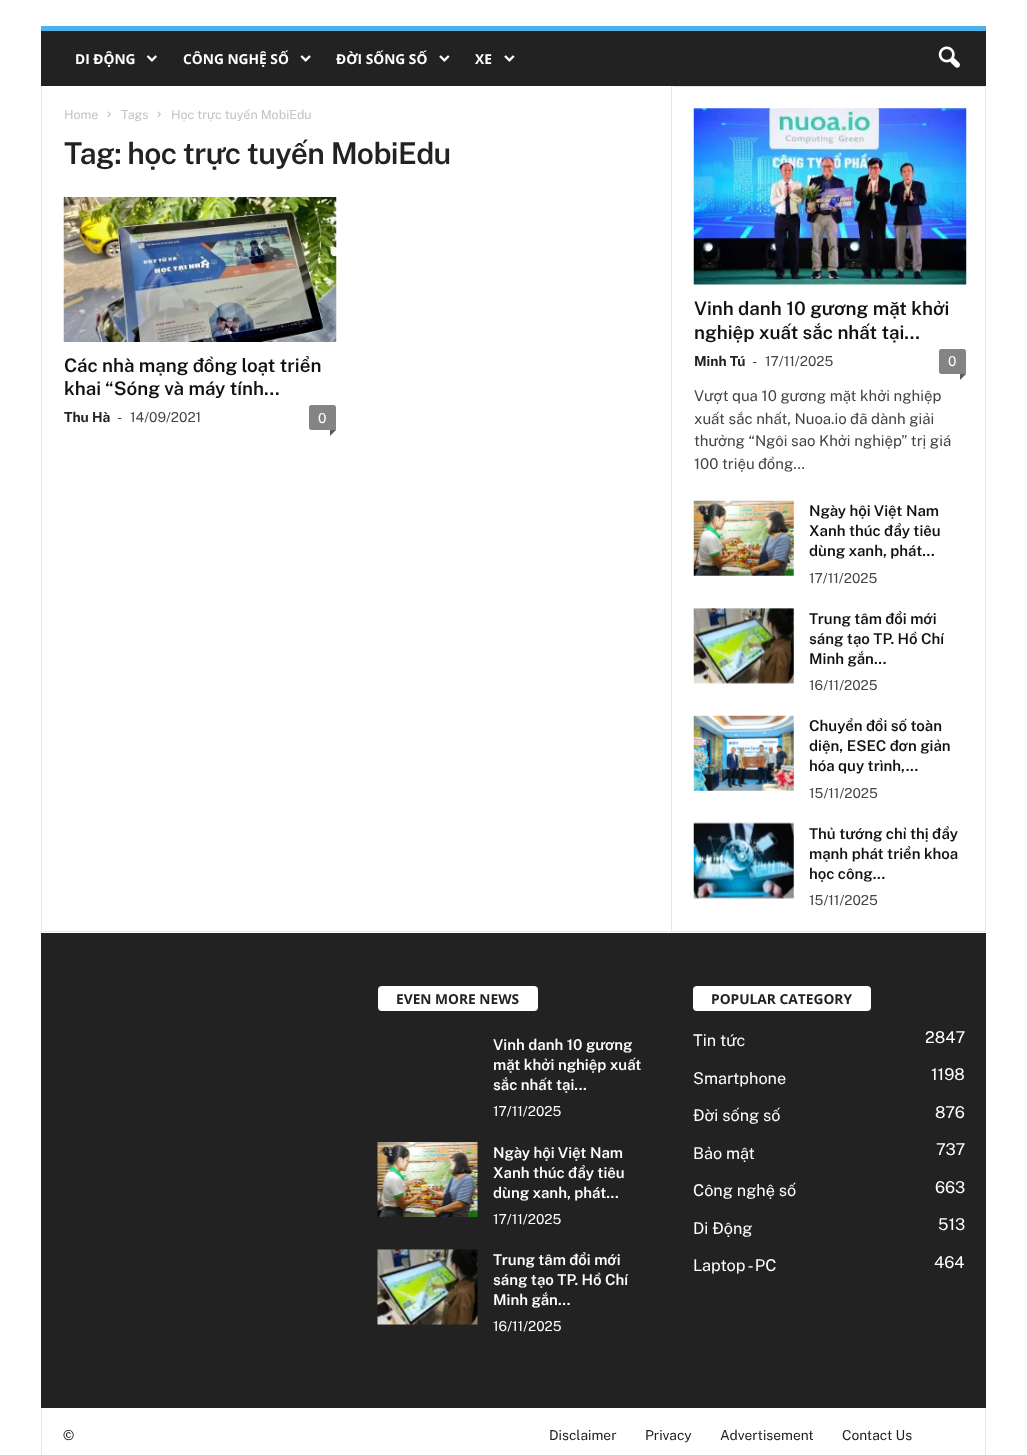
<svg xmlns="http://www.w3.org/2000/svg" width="1027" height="1455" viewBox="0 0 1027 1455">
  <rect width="100%" height="100%" fill="#ffffff"/>
  <rect x="41" y="31" width="945" height="55" fill="#222222"/>
  <rect x="41" y="26" width="945" height="5" fill="#4db2ec"/>
  <text x="75" y="64" font-family="Open Sans" font-size="13.75" font-weight="bold" fill="#ffffff">DI ĐỘNG</text>
  <image x="146" y="55" width="11" height="7" href="img1.png"/>
  <text x="183" y="64" font-family="Open Sans" font-size="13.75" font-weight="bold" fill="#ffffff">CÔNG NGHỆ SỐ</text>
  <image x="300" y="55" width="11" height="7" href="img2.png"/>
  <text x="336" y="64" font-family="Open Sans" font-size="13.75" font-weight="bold" fill="#ffffff">ĐỜI SỐNG SỐ</text>
  <image x="439" y="55" width="11" height="7" href="img3.png"/>
  <text x="475" y="64" font-family="Open Sans" font-size="13.75" font-weight="bold" fill="#ffffff">XE</text>
  <image x="504" y="55" width="11" height="7" href="img3.png"/>
  <image x="938" y="46" width="22" height="22" href="img4.png"/>
  <rect x="41" y="931" width="945" height="1" fill="#e6e6e6"/>
  <rect x="41" y="86" width="1" height="845" fill="#e6e6e6"/>
  <text x="64" y="119" font-family="Public Sans" font-size="12.5" fill="#c3c3c3">Home</text>
  <image x="107" y="111" width="4" height="7" href="img5.png"/>
  <text x="121" y="119" font-family="Public Sans" font-size="12.5" fill="#c3c3c3">Tags</text>
  <image x="157" y="111" width="4" height="7" href="img5.png"/>
  <text x="171" y="119" font-family="Public Sans" font-size="12.5" fill="#c3c3c3">Học trực tuyến MobiEdu</text>
  <text x="64" y="164" font-family="Public Sans" font-size="30" font-weight="600" letter-spacing="-0.6" fill="#222222">Tag: học trực tuyến MobiEdu</text>
  <image x="63" y="197" width="274" height="145" href="img6.png"/>
  <text x="64" y="372" font-family="Public Sans" font-size="18.75" font-weight="600" fill="#111111">Các nhà mạng đồng loạt triển</text>
  <text x="64" y="395" font-family="Public Sans" font-size="18.75" font-weight="600" fill="#111111">khai “Sóng và máy tính...</text>
  <text x="64" y="422" font-family="Public Sans" font-size="13.75" font-weight="bold" fill="#222222">Thu Hà</text>
  <text x="117" y="422" font-family="Public Sans" font-size="13.75" fill="#444444">-</text>
  <text x="130" y="422" font-family="Public Sans" font-size="13.75" fill="#444444">14/09/2021</text>
  <path d="M311.5 405H333.5C335 405 336 406 336 407.5V430H311.5C310 430 309 429 309 427.5V407.5C309 406 310 405 311.5 405Z" fill="#848484"/>
  <text x="318" y="423" font-family="Public Sans" font-size="13.75" fill="#ffffff">0</text>
  <path d="M330 430H336L330 436Z" fill="#5b5b5b"/>
  <rect x="671" y="86" width="1" height="845" fill="#e6e6e6"/>
  <rect x="985" y="86" width="1" height="845" fill="#e6e6e6"/>
  <rect x="673" y="86" width="313" height="1" fill="#e6e6e6"/>
  <image x="693" y="108" width="274" height="177" href="img7.png"/>
  <text x="694" y="315" font-family="Public Sans" font-size="18.75" font-weight="600" fill="#111111">Vinh danh 10 gương mặt khởi</text>
  <text x="694" y="339" font-family="Public Sans" font-size="18.75" font-weight="600" fill="#111111">nghiệp xuất sắc nhất tại...</text>
  <text x="694" y="366" font-family="Public Sans" font-size="13.75" font-weight="bold" fill="#222222">Minh Tú</text>
  <text x="752" y="366" font-family="Public Sans" font-size="13.75" fill="#444444">-</text>
  <text x="765" y="366" font-family="Public Sans" font-size="13.75" fill="#444444">17/11/2025</text>
  <path d="M941.5 349H963.5C965 349 966 350 966 351.5V374H941.5C940 374 939 373 939 371.5V351.5C939 350 940 349 941.5 349Z" fill="#848484"/>
  <text x="948" y="366" font-family="Public Sans" font-size="13.75" fill="#ffffff">0</text>
  <path d="M960 374H966L960 380Z" fill="#5b5b5b"/>
  <text x="694" y="401" font-family="Public Sans" font-size="15" fill="#444444">Vượt qua 10 gương mặt khởi nghiệp</text>
  <text x="694" y="424" font-family="Public Sans" font-size="15" fill="#444444">xuất sắc nhất, Nuoa.io đã dành giải</text>
  <text x="694" y="446" font-family="Public Sans" font-size="15" fill="#444444">thưởng “Ngôi sao Khởi nghiệp” trị giá</text>
  <text x="694" y="469" font-family="Public Sans" font-size="15" fill="#444444">100 triệu đồng...</text>
  <image x="693" y="500" width="101" height="76" href="img8.png"/>
  <text x="809" y="516" font-family="Public Sans" font-size="15" font-weight="600" fill="#111111">Ngày hội Việt Nam</text>
  <text x="809" y="536" font-family="Public Sans" font-size="15" font-weight="600" fill="#111111">Xanh thúc đẩy tiêu</text>
  <text x="809" y="556" font-family="Public Sans" font-size="15" font-weight="600" fill="#111111">dùng xanh, phát...</text>
  <text x="809" y="583" font-family="Public Sans" font-size="13.75" fill="#444444">17/11/2025</text>
  <image x="693" y="608" width="101" height="76" href="img9.png"/>
  <text x="809" y="624" font-family="Public Sans" font-size="15" font-weight="600" fill="#111111">Trung tâm đổi mới</text>
  <text x="809" y="644" font-family="Public Sans" font-size="15" font-weight="600" fill="#111111">sáng tạo TP. Hồ Chí</text>
  <text x="809" y="664" font-family="Public Sans" font-size="15" font-weight="600" fill="#111111">Minh gắn...</text>
  <text x="809" y="690" font-family="Public Sans" font-size="13.75" fill="#444444">16/11/2025</text>
  <image x="693" y="715" width="101" height="76" href="img10.png"/>
  <text x="809" y="731" font-family="Public Sans" font-size="15" font-weight="600" fill="#111111">Chuyển đổi số toàn</text>
  <text x="809" y="751" font-family="Public Sans" font-size="15" font-weight="600" fill="#111111">diện, ESEC đơn giản</text>
  <text x="809" y="771" font-family="Public Sans" font-size="15" font-weight="600" fill="#111111">hóa quy trình,...</text>
  <text x="809" y="798" font-family="Public Sans" font-size="13.75" fill="#444444">15/11/2025</text>
  <image x="693" y="822" width="101" height="77" href="img11.png"/>
  <text x="809" y="839" font-family="Public Sans" font-size="15" font-weight="600" fill="#111111">Thủ tướng chỉ thị đẩy</text>
  <text x="809" y="859" font-family="Public Sans" font-size="15" font-weight="600" fill="#111111">mạnh phát triển khoa</text>
  <text x="809" y="879" font-family="Public Sans" font-size="15" font-weight="600" fill="#111111">học công...</text>
  <text x="809" y="905" font-family="Public Sans" font-size="13.75" fill="#444444">15/11/2025</text>
  <rect x="41" y="933" width="945" height="475" fill="#222222"/>
  <rect x="378" y="986" width="160" height="25" rx="4" fill="#ffffff"/>
  <text x="396" y="1004" font-family="Open Sans" font-size="13.75" font-weight="bold" fill="#222222">EVEN MORE NEWS</text>
  <text x="493" y="1050" font-family="Public Sans" font-size="15" font-weight="600" fill="#ffffff">Vinh danh 10 gương</text>
  <text x="493" y="1070" font-family="Public Sans" font-size="15" font-weight="600" fill="#ffffff">mặt khởi nghiệp xuất</text>
  <text x="493" y="1090" font-family="Public Sans" font-size="15" font-weight="600" fill="#ffffff">sắc nhất tại...</text>
  <text x="493" y="1116" font-family="Public Sans" font-size="13.75" fill="#ffffff">17/11/2025</text>
  <image x="377" y="1142" width="101" height="75" href="img12.png"/>
  <text x="493" y="1158" font-family="Public Sans" font-size="15" font-weight="600" fill="#ffffff">Ngày hội Việt Nam</text>
  <text x="493" y="1178" font-family="Public Sans" font-size="15" font-weight="600" fill="#ffffff">Xanh thúc đẩy tiêu</text>
  <text x="493" y="1198" font-family="Public Sans" font-size="15" font-weight="600" fill="#ffffff">dùng xanh, phát...</text>
  <text x="493" y="1224" font-family="Public Sans" font-size="13.75" fill="#ffffff">17/11/2025</text>
  <image x="377" y="1249" width="101" height="76" href="img13.png"/>
  <text x="493" y="1265" font-family="Public Sans" font-size="15" font-weight="600" fill="#ffffff">Trung tâm đổi mới</text>
  <text x="493" y="1285" font-family="Public Sans" font-size="15" font-weight="600" fill="#ffffff">sáng tạo TP. Hồ Chí</text>
  <text x="493" y="1305" font-family="Public Sans" font-size="15" font-weight="600" fill="#ffffff">Minh gắn...</text>
  <text x="493" y="1331" font-family="Public Sans" font-size="13.75" fill="#ffffff">16/11/2025</text>
  <rect x="693" y="986" width="178" height="25" rx="4" fill="#ffffff"/>
  <text x="711" y="1004" font-family="Open Sans" font-size="13.75" font-weight="bold" fill="#222222">POPULAR CATEGORY</text>
  <text x="693" y="1046" font-family="Public Sans" font-size="16.25" fill="#ffffff">Tin tức</text>
  <text x="925" y="1043" font-family="Public Sans" font-size="16.25" fill="#ffffff">2847</text>
  <text x="693" y="1084" font-family="Public Sans" font-size="16.25" fill="#ffffff">Smartphone</text>
  <text x="931" y="1080" font-family="Public Sans" font-size="16.25" fill="#ffffff">1198</text>
  <text x="693" y="1121" font-family="Public Sans" font-size="16.25" fill="#ffffff">Đời sống số</text>
  <text x="935" y="1118" font-family="Public Sans" font-size="16.25" fill="#ffffff">876</text>
  <text x="693" y="1159" font-family="Public Sans" font-size="16.25" fill="#ffffff">Bảo mật</text>
  <text x="936" y="1155" font-family="Public Sans" font-size="16.25" fill="#ffffff">737</text>
  <text x="693" y="1196" font-family="Public Sans" font-size="16.25" fill="#ffffff">Công nghệ số</text>
  <text x="935" y="1193" font-family="Public Sans" font-size="16.25" fill="#ffffff">663</text>
  <text x="693" y="1234" font-family="Public Sans" font-size="16.25" fill="#ffffff">Di Động</text>
  <text x="938" y="1230" font-family="Public Sans" font-size="16.25" fill="#ffffff">513</text>
  <text x="693" y="1271" font-family="Public Sans" font-size="16.25" fill="#ffffff">Laptop - PC</text>
  <text x="934" y="1268" font-family="Public Sans" font-size="16.25" fill="#ffffff">464</text>
  <rect x="41" y="1408" width="1" height="47" fill="#e6e6e6"/>
  <text x="63" y="1440" font-family="Public Sans" font-size="13.75" fill="#222222">©</text>
  <text x="549" y="1440" font-family="Public Sans" font-size="13.75" fill="#222222">Disclaimer</text>
  <text x="645" y="1440" font-family="Public Sans" font-size="13.75" fill="#222222">Privacy</text>
  <text x="720" y="1440" font-family="Public Sans" font-size="13.75" fill="#222222">Advertisement</text>
  <text x="842" y="1440" font-family="Public Sans" font-size="13.75" fill="#222222">Contact Us</text>
  <rect x="985" y="1408" width="1" height="47" fill="#e6e6e6"/>
</svg>
